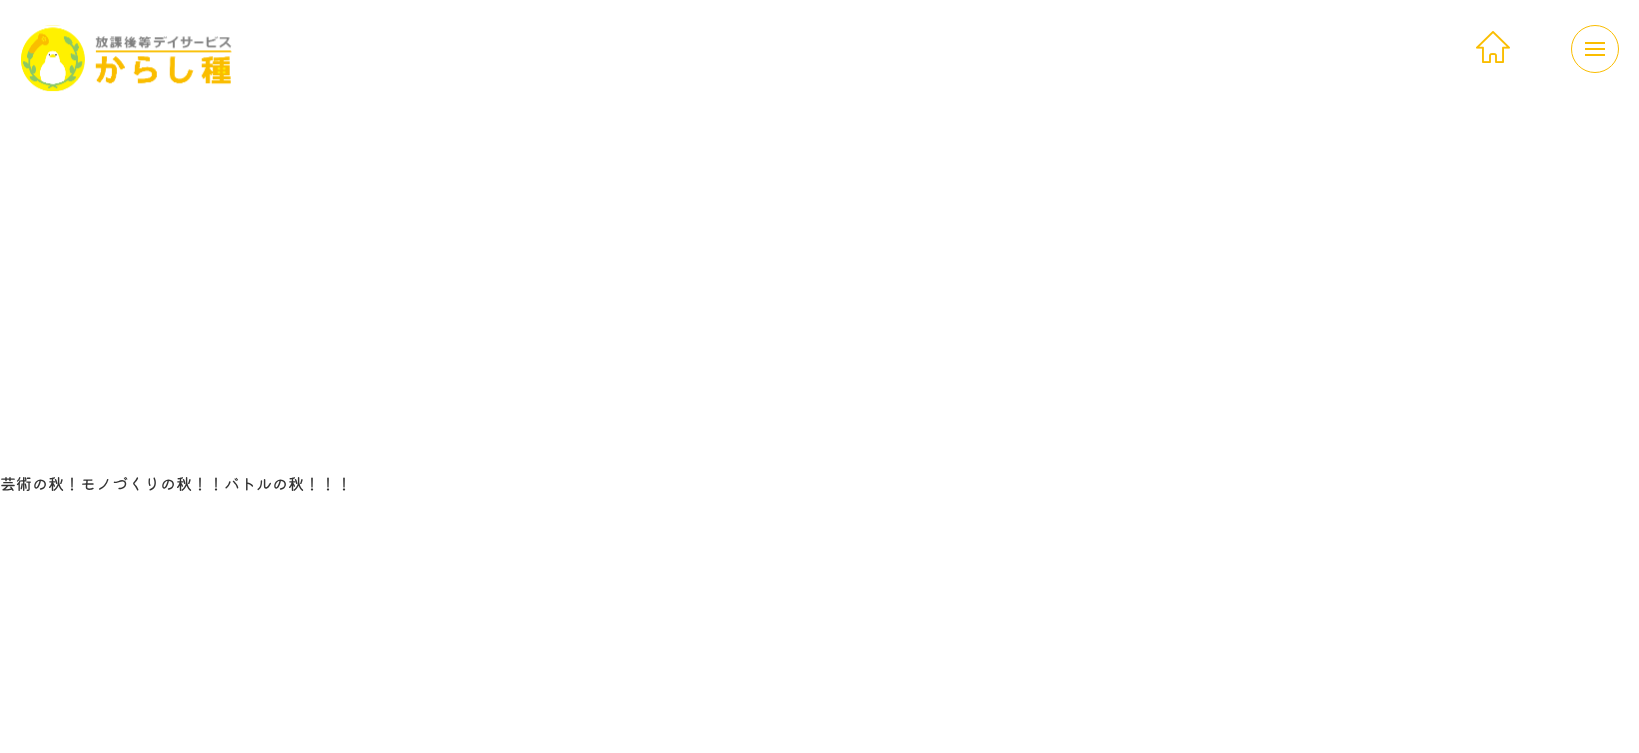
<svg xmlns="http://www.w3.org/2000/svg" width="1639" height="753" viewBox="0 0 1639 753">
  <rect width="100%" height="100%" fill="#ffffff"/>
  <image x="21" y="25" width="211" height="67" href="img1.png"/>
  <image x="1476" y="31" width="34" height="32" href="img2.png"/>
  <circle cx="1595" cy="49" r="23.5" fill="none" stroke="#fabd00"/>
  <rect x="1585" y="42" width="20" height="2" fill="#fabd00"/>
  <rect x="1585" y="48" width="20" height="2" fill="#fabd00"/>
  <rect x="1585" y="54" width="20" height="2" fill="#fabd00"/>
  <text x="0" y="490" font-family="Kiwi Maru" font-size="16" font-weight="500" fill="#333333">芸術の秋！モノづくりの秋！！バトルの秋！！！</text>
</svg>
